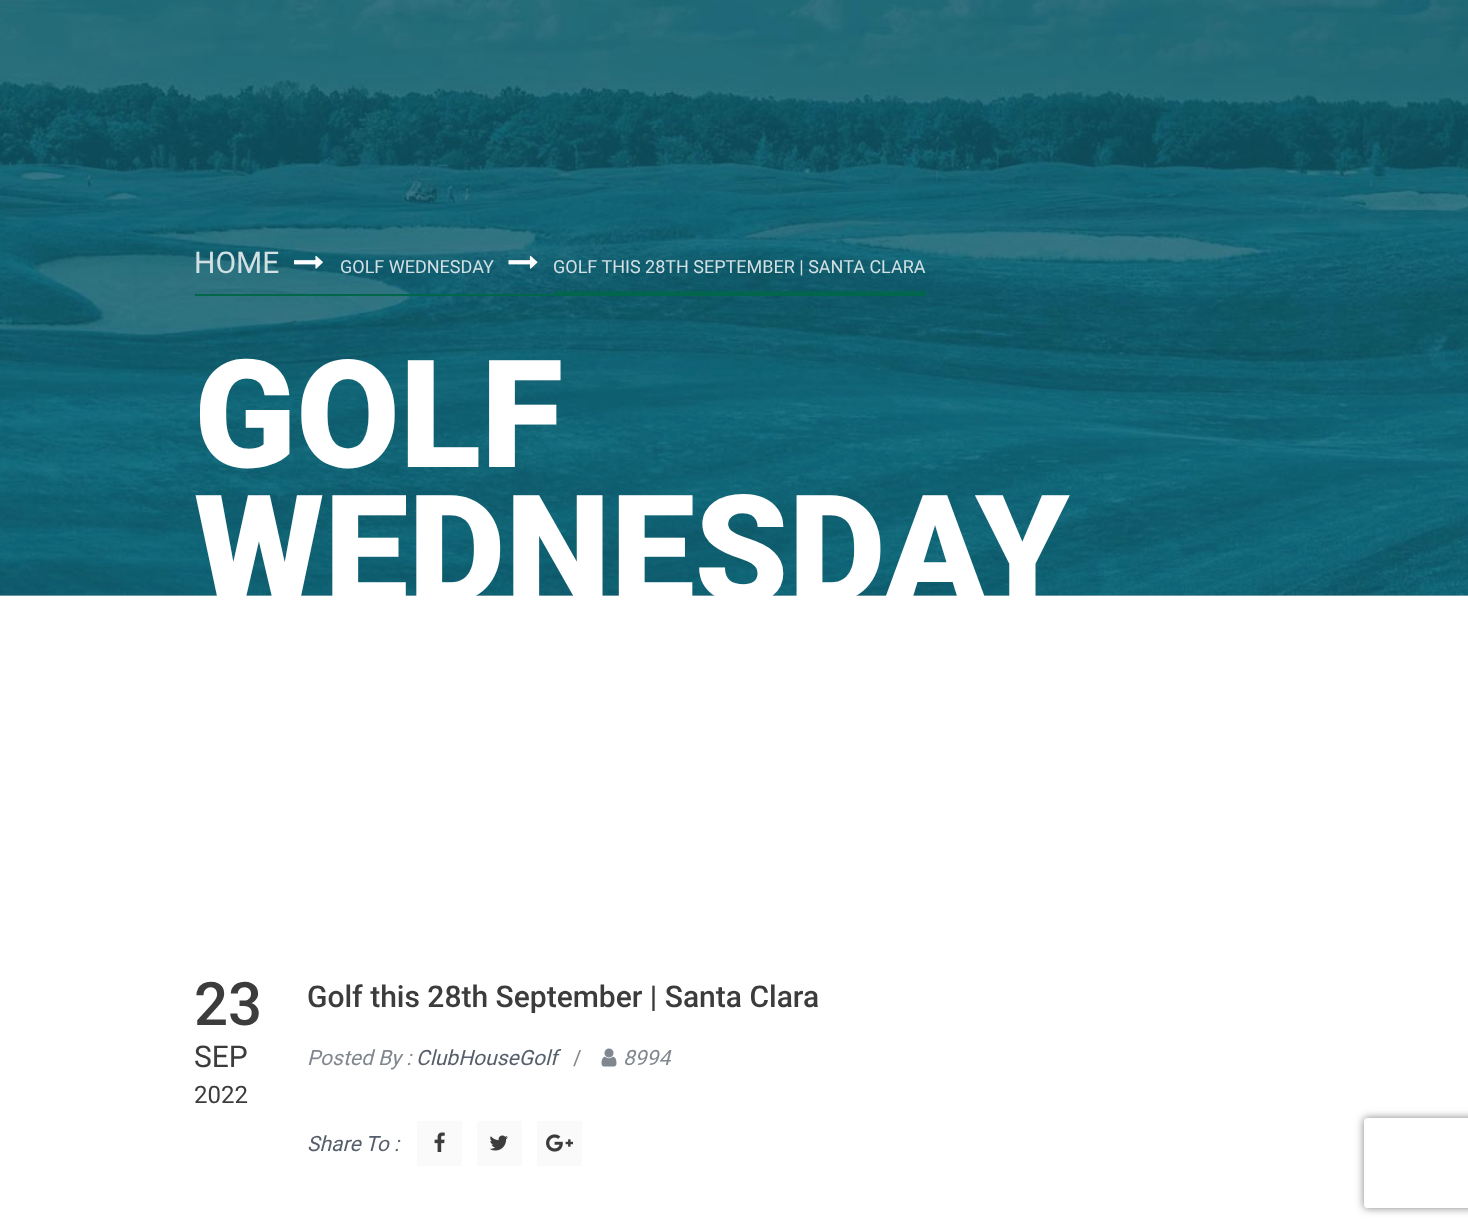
<svg xmlns="http://www.w3.org/2000/svg" width="1468" height="1228" viewBox="0 0 1468 1228">
  <defs>
    <clipPath id="clip1"><rect x="0" y="0" width="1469" height="596"/></clipPath>
    <clipPath id="clip2"><path d="M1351 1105H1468V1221H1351ZM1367 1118H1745C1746.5 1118 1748 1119.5 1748 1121V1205C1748 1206.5 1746.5 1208 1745 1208H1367C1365.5 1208 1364 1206.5 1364 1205V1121C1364 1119.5 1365.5 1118 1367 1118Z" clip-rule="evenodd"/></clipPath>
    <filter id="blur1" x="-50%" y="-200%" width="200%" height="500%"><feGaussianBlur stdDeviation="4"/></filter>
  </defs>
  <rect width="100%" height="100%" fill="#ffffff"/>
  <rect x="0" y="595" width="1468" height="1" fill="#c7ccd1"/>
  <image x="0" y="0" width="1468" height="596" href="img1.png"/>
  <rect x="195" y="294" width="731" height="2" fill="#00674b"/>
  <text x="194" y="273" font-family="Roboto" font-size="30" fill="#d2e0e3">HOME</text>
  <image x="294" y="255" width="29" height="14" href="img2.png"/>
  <text x="340" y="273" font-family="Roboto" font-size="18" fill="#d2e0e3">GOLF WEDNESDAY</text>
  <image x="508" y="255" width="30" height="14" href="img3.png"/>
  <text x="553" y="273" font-family="Roboto" font-size="18" fill="#d2e0e3">GOLF THIS 28TH SEPTEMBER | SANTA CLARA</text>
  <rect x="554" y="291" width="372" height="3" fill="#00674b" fill-opacity="0.8"/>
  <text x="194" y="467" font-family="Roboto" font-size="150" font-weight="900" fill="#ffffff">GOLF</text>
  <g clip-path="url(#clip1)">
    <text x="194" y="602" font-family="Roboto" font-size="150" font-weight="900" fill="#ffffff">WEDNESDAY</text>
  </g>
  <text x="194" y="1025" font-family="Roboto" font-size="60" font-weight="500" fill="#3c3c3c">23</text>
  <text x="194" y="1067" font-family="Roboto" font-size="30" fill="#3c3c3c">SEP</text>
  <text x="194" y="1103" font-family="Roboto" font-size="24" fill="#3c3c3c">2022</text>
  <text x="307" y="1007" font-family="Roboto" font-size="30" font-weight="500" fill="#3c3c3c">Golf this 28th September | Santa Clara</text>
  <text x="307" y="1065" font-family="Roboto" font-size="21" font-style="italic" fill="#81878f">Posted By :</text>
  <text x="416" y="1065" font-family="Roboto" font-size="21" font-style="italic" fill="#555e69">ClubHouseGolf</text>
  <text x="573" y="1065" font-family="Roboto" font-size="21" fill="#81878f">/</text>
  <image x="601" y="1048" width="16" height="19" href="img4.png"/>
  <text x="623" y="1065" font-family="Roboto" font-size="21" font-style="italic" fill="#81878f">8994</text>
  <text x="307" y="1151" font-family="Roboto" font-size="21" font-style="italic" fill="#555e69">Share To :</text>
  <rect x="417" y="1121" width="45" height="45" fill="#fafafa"/>
  <image x="434" y="1132" width="11" height="20" href="img5.png"/>
  <rect x="477" y="1121" width="45" height="45" fill="#fafafa"/>
  <image x="489" y="1135" width="19" height="16" href="img6.png"/>
  <rect x="537" y="1121" width="45" height="45" fill="#fafafa"/>
  <image x="546" y="1134" width="27" height="18" href="img7.png"/>
  <g clip-path="url(#clip2)">
    <rect x="1364" y="1118" width="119" height="90" rx="3" fill="#808080" filter="url(#blur1)"/>
  </g>
</svg>
